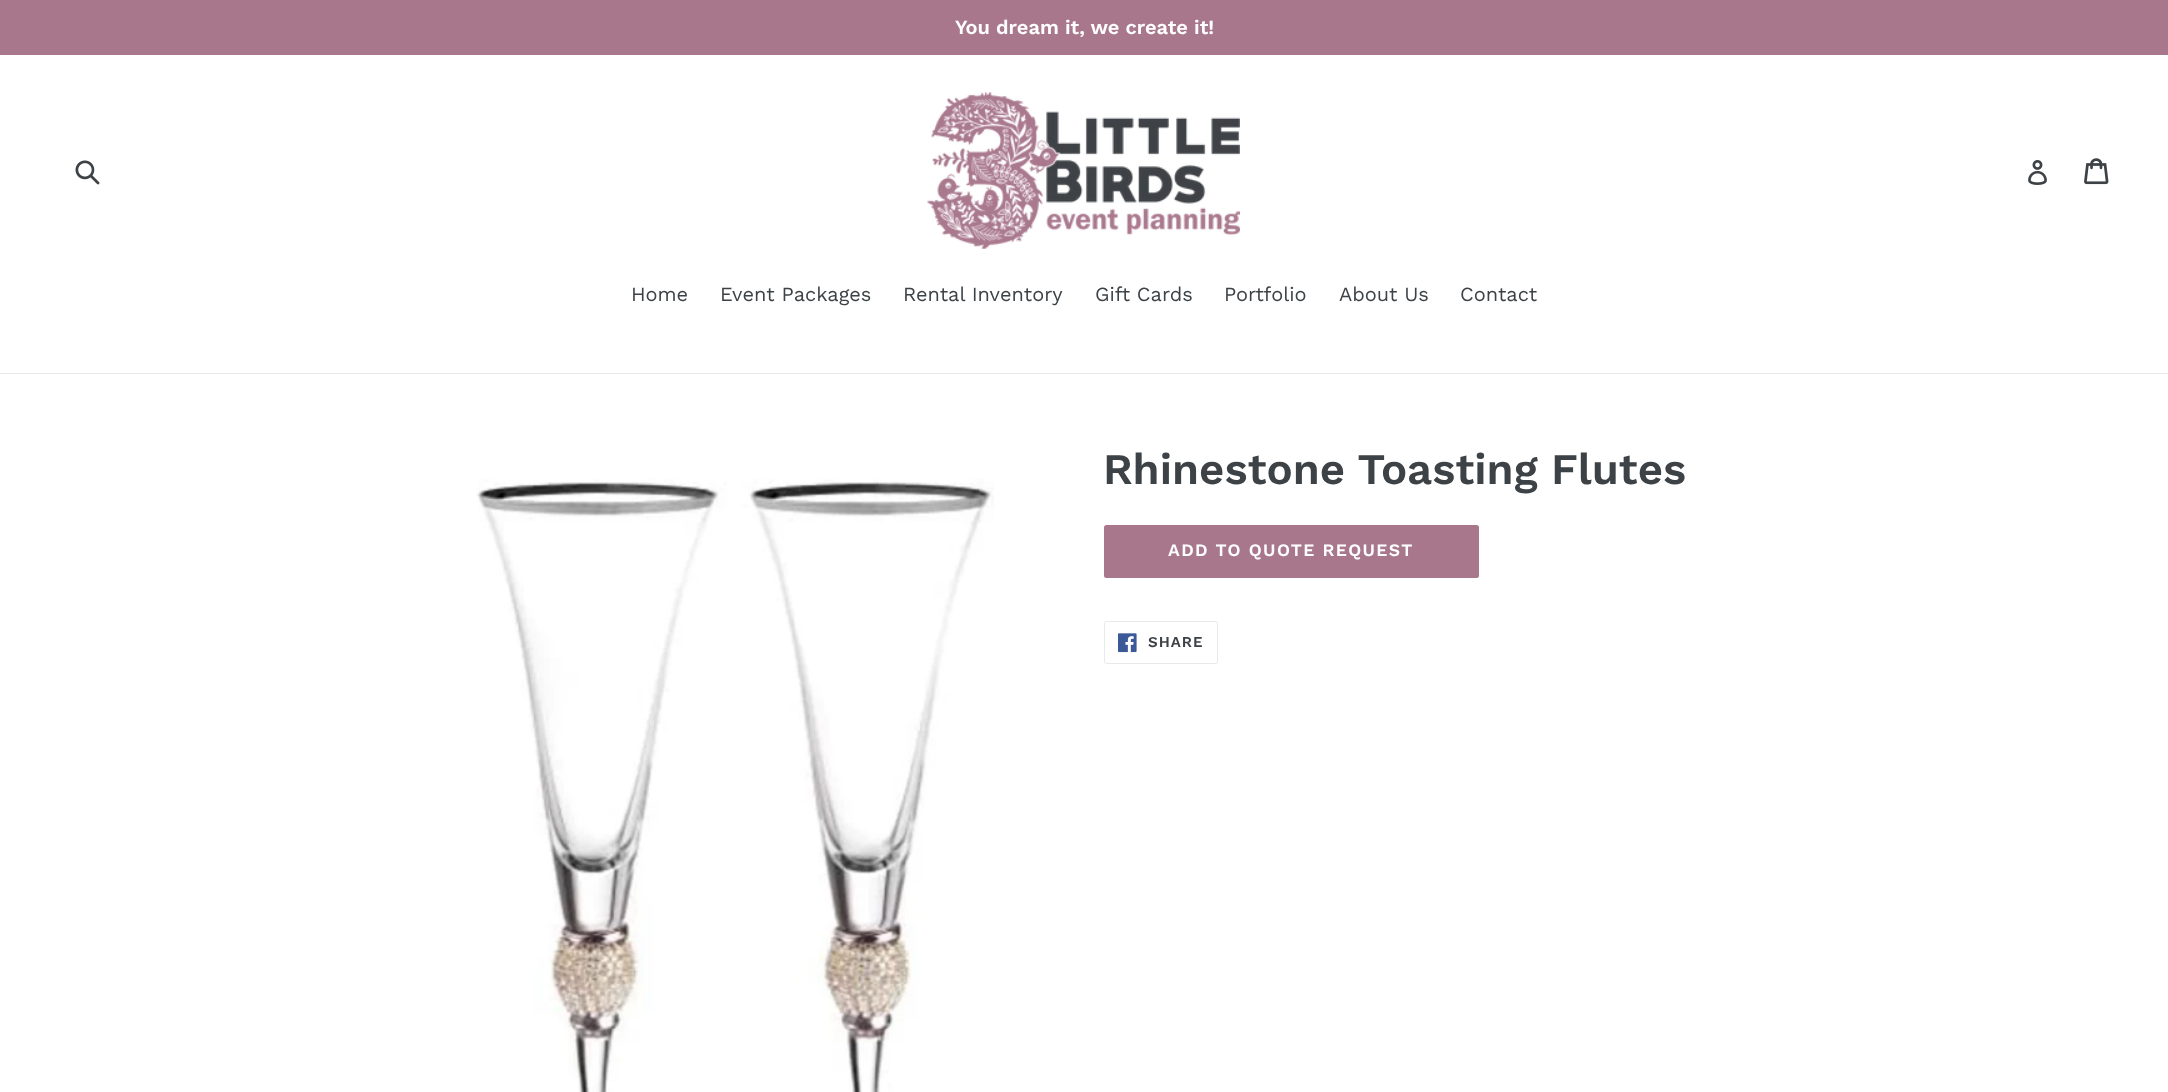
<svg xmlns="http://www.w3.org/2000/svg" width="2168" height="1092" viewBox="0 0 2168 1092">
  <rect width="100%" height="100%" fill="#ffffff"/>
  <rect x="0" y="0" width="2168" height="55" fill="#a8778c"/>
  <text x="955" y="34" font-family="Work Sans" font-size="20" font-weight="600" fill="#ffffff">You dream it, we create it!</text>
  <image x="75" y="160" width="25" height="25" href="img1.png"/>
  <image x="927" y="92" width="313" height="157" href="img2.png"/>
  <image x="2028" y="160" width="19" height="25" href="img3.png"/>
  <image x="2084" y="158" width="25" height="27" href="img4.png"/>
  <rect x="0" y="373" width="2168" height="1" fill="#e8e9eb"/>
  <text x="631" y="301" font-family="Work Sans" font-size="20" fill="#3d4246">Home</text>
  <text x="720" y="301" font-family="Work Sans" font-size="20" fill="#3d4246">Event Packages</text>
  <text x="903" y="301" font-family="Work Sans" font-size="20" fill="#3d4246">Rental Inventory</text>
  <text x="1095" y="301" font-family="Work Sans" font-size="20" fill="#3d4246">Gift Cards</text>
  <text x="1224" y="301" font-family="Work Sans" font-size="20" fill="#3d4246">Portfolio</text>
  <text x="1339" y="301" font-family="Work Sans" font-size="20" fill="#3d4246">About Us</text>
  <text x="1460" y="301" font-family="Work Sans" font-size="20" fill="#3d4246">Contact</text>
  <image x="476" y="478" width="518" height="614" href="img5.png"/>
  <text x="1103" y="484" font-family="Work Sans" font-size="43.75" font-weight="600" fill="#3d4246">Rhinestone Toasting Flutes</text>
  <rect x="1104" y="525" width="375" height="53" rx="2.5" fill="#a8778c"/>
  <text x="1168" y="556" font-family="Work Sans" font-size="17.5" font-weight="600" letter-spacing="1.4" fill="#ffffff">ADD TO QUOTE REQUEST</text>
  <rect x="1104.5" y="621.5" width="113" height="42" rx="2" fill="none" stroke="#e8e9eb"/>
  <image x="1118" y="633" width="19" height="20" href="img6.png"/>
  <text x="1148" y="647" font-family="Work Sans" font-size="15" font-weight="600" letter-spacing="1" fill="#3d4246">SHARE</text>
</svg>
